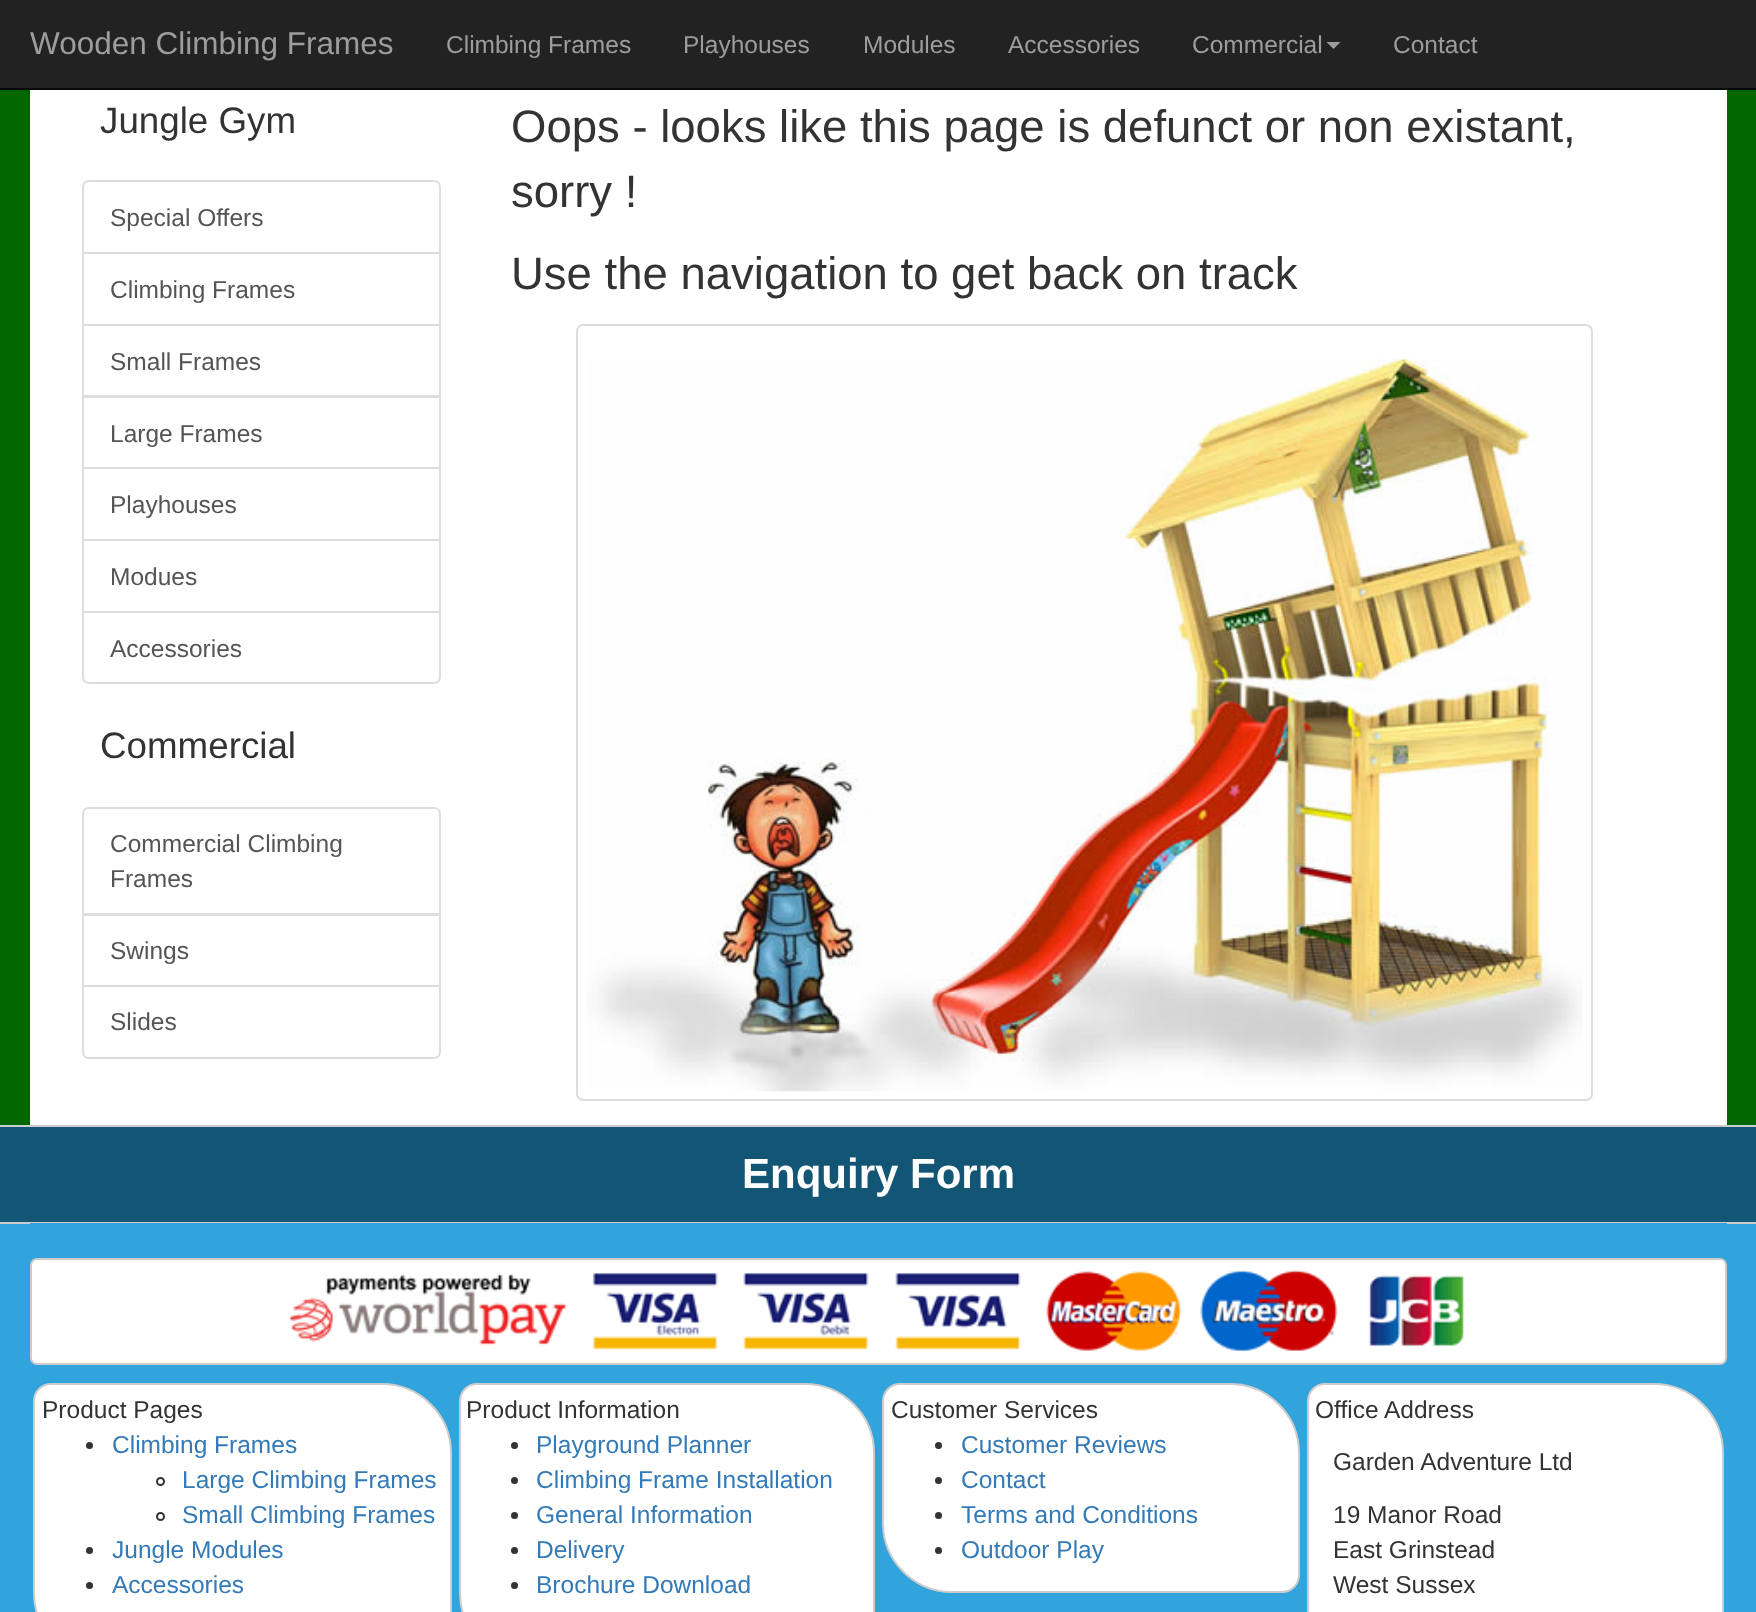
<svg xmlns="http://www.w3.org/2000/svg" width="1756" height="1612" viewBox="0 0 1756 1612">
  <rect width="100%" height="100%" fill="#006600"/>
  <rect x="0" y="0" width="1756" height="88" fill="#222222"/>
  <rect x="0" y="88" width="1756" height="2" fill="#080808"/>
  <text x="30" y="54" font-family="Liberation Sans" font-size="31.5" fill="#9d9d9d">Wooden Climbing Frames</text>
  <text x="446" y="53" font-family="Liberation Sans" font-size="24.5" fill="#9d9d9d">Climbing Frames</text>
  <text x="683" y="53" font-family="Liberation Sans" font-size="24.5" fill="#9d9d9d">Playhouses</text>
  <text x="863" y="53" font-family="Liberation Sans" font-size="24.5" fill="#9d9d9d">Modules</text>
  <text x="1008" y="53" font-family="Liberation Sans" font-size="24.5" fill="#9d9d9d">Accessories</text>
  <text x="1192" y="53" font-family="Liberation Sans" font-size="24.5" fill="#9d9d9d">Commercial</text>
  <path d="M1326.5 42H1340.5L1333.5 49Z" fill="#9d9d9d"/>
  <text x="1393" y="53" font-family="Liberation Sans" font-size="24.5" fill="#9d9d9d">Contact</text>
  <rect x="30" y="90" width="1697" height="1035" fill="#ffffff"/>
  <text x="100" y="133" font-family="Liberation Sans" font-size="36.75" fill="#333333">Jungle Gym</text>
  <path d="M89 181H434C437.5 181 440 183.5 440 187V253H83V187C83 183.5 85.5 181 89 181Z" fill="none" stroke="#dddddd" stroke-width="2"/>
  <text x="110" y="226" font-family="Liberation Sans" font-size="24.5" fill="#555555">Special Offers</text>
  <rect x="83" y="253" width="357" height="72" fill="none" stroke="#dddddd" stroke-width="2"/>
  <text x="110" y="298" font-family="Liberation Sans" font-size="24.5" fill="#555555">Climbing Frames</text>
  <rect x="83" y="325" width="357" height="71" fill="none" stroke="#dddddd" stroke-width="2"/>
  <text x="110" y="370" font-family="Liberation Sans" font-size="24.5" fill="#555555">Small Frames</text>
  <rect x="83" y="397" width="357" height="71" fill="none" stroke="#dddddd" stroke-width="2"/>
  <text x="110" y="442" font-family="Liberation Sans" font-size="24.5" fill="#555555">Large Frames</text>
  <rect x="83" y="468" width="357" height="72" fill="none" stroke="#dddddd" stroke-width="2"/>
  <text x="110" y="513" font-family="Liberation Sans" font-size="24.5" fill="#555555">Playhouses</text>
  <rect x="83" y="540" width="357" height="72" fill="none" stroke="#dddddd" stroke-width="2"/>
  <text x="110" y="585" font-family="Liberation Sans" font-size="24.5" fill="#555555">Modues</text>
  <path d="M83 612H440V677C440 680.5 437.5 683 434 683H89C85.5 683 83 680.5 83 677Z" fill="#ffffff" stroke="#dddddd" stroke-width="2"/>
  <text x="110" y="657" font-family="Liberation Sans" font-size="24.5" fill="#555555">Accessories</text>
  <text x="100" y="758" font-family="Liberation Sans" font-size="36.75" fill="#333333">Commercial</text>
  <path d="M89 808H434C437.5 808 440 810.5 440 814V914H83V814C83 810.5 85.5 808 89 808Z" fill="none" stroke="#dddddd" stroke-width="2"/>
  <text x="110" y="852" font-family="Liberation Sans" font-size="24.5" fill="#555555">Commercial Climbing</text>
  <text x="110" y="887" font-family="Liberation Sans" font-size="24.5" fill="#555555">Frames</text>
  <rect x="83" y="915" width="357" height="71" fill="none" stroke="#dddddd" stroke-width="2"/>
  <text x="110" y="959" font-family="Liberation Sans" font-size="24.5" fill="#555555">Swings</text>
  <path d="M83 986H440V1052C440 1055.5 437.5 1058 434 1058H89C85.5 1058 83 1055.5 83 1052Z" fill="#ffffff" stroke="#dddddd" stroke-width="2"/>
  <text x="110" y="1030" font-family="Liberation Sans" font-size="24.5" fill="#555555">Slides</text>
  <text x="511" y="142" font-family="Liberation Sans" font-size="45.5" fill="#333333">Oops - looks like this page is defunct or non existant,</text>
  <text x="511" y="207" font-family="Liberation Sans" font-size="45.5" fill="#333333">sorry !</text>
  <text x="511" y="289" font-family="Liberation Sans" font-size="45.5" fill="#333333">Use the navigation to get back on track</text>
  <rect x="577" y="325" width="1015" height="775" rx="6" fill="none" stroke="#dddddd" stroke-width="2"/>
  <image x="587" y="359" width="996" height="733" href="img1.png"/>
  <rect x="0" y="1127" width="1756" height="95" fill="#135575"/>
  <rect x="0" y="1125" width="1756" height="2" fill="#cccccc"/>
  <text x="742" y="1188" font-family="Liberation Sans" font-size="42" font-weight="bold" fill="#ffffff">Enquiry Form</text>
  <rect x="0" y="1224" width="1756" height="388" fill="#31a3dd"/>
  <rect x="0" y="1222" width="1756" height="2" fill="#cccccc"/>
  <rect x="30" y="1223" width="1697" height="1" fill="#31a3dd"/>
  <rect x="31" y="1259" width="1695" height="105" rx="6" fill="#ffffff" stroke="#cccccc" stroke-width="2"/>
  <image x="289" y="1270" width="1176" height="82" href="img2.png"/>
  <path d="M51 1384H382C420 1384 451 1415 451 1453V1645C451 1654.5 443.5 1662 434 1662H103C65 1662 34 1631 34 1593V1401C34 1391.5 41.5 1384 51 1384Z" fill="#ffffff" stroke="#cccccc" stroke-width="2"/>
  <text x="42" y="1418" font-family="Liberation Sans" font-size="24.5" fill="#333333">Product Pages</text>
  <circle cx="89.5" cy="1445.5" r="3.5" fill="#333333"/>
  <text x="112" y="1453" font-family="Liberation Sans" font-size="24.5" fill="#337ab7">Climbing Frames</text>
  <circle cx="160.5" cy="1481.5" r="3.5" fill="none" stroke="#333333" stroke-width="2"/>
  <text x="182" y="1488" font-family="Liberation Sans" font-size="24.5" fill="#337ab7">Large Climbing Frames</text>
  <circle cx="160.5" cy="1516.5" r="3.5" fill="none" stroke="#333333" stroke-width="2"/>
  <text x="182" y="1523" font-family="Liberation Sans" font-size="24.5" fill="#337ab7">Small Climbing Frames</text>
  <circle cx="89.5" cy="1550.5" r="3.5" fill="#333333"/>
  <text x="112" y="1558" font-family="Liberation Sans" font-size="24.5" fill="#337ab7">Jungle Modules</text>
  <circle cx="89.5" cy="1585.5" r="3.5" fill="#333333"/>
  <text x="112" y="1593" font-family="Liberation Sans" font-size="24.5" fill="#337ab7">Accessories</text>
  <path d="M477 1384H805C843 1384 874 1415 874 1453V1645C874 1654.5 866.5 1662 857 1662H529C491 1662 460 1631 460 1593V1401C460 1391.5 467.5 1384 477 1384Z" fill="#ffffff" stroke="#cccccc" stroke-width="2"/>
  <text x="466" y="1418" font-family="Liberation Sans" font-size="24.5" fill="#333333">Product Information</text>
  <circle cx="514.5" cy="1445.5" r="3.5" fill="#333333"/>
  <text x="536" y="1453" font-family="Liberation Sans" font-size="24.5" fill="#337ab7">Playground Planner</text>
  <circle cx="514.5" cy="1480.5" r="3.5" fill="#333333"/>
  <text x="536" y="1488" font-family="Liberation Sans" font-size="24.5" fill="#337ab7">Climbing Frame Installation</text>
  <circle cx="514.5" cy="1515.5" r="3.5" fill="#333333"/>
  <text x="536" y="1523" font-family="Liberation Sans" font-size="24.5" fill="#337ab7">General Information</text>
  <circle cx="514.5" cy="1550.5" r="3.5" fill="#333333"/>
  <text x="536" y="1558" font-family="Liberation Sans" font-size="24.5" fill="#337ab7">Delivery</text>
  <circle cx="514.5" cy="1585.5" r="3.5" fill="#333333"/>
  <text x="536" y="1593" font-family="Liberation Sans" font-size="24.5" fill="#337ab7">Brochure Download</text>
  <path d="M900 1384H1230C1268 1384 1299 1415 1299 1453V1575C1299 1584.5 1291.5 1592 1282 1592H952C914 1592 883 1561 883 1523V1401C883 1391.5 890.5 1384 900 1384Z" fill="#ffffff" stroke="#cccccc" stroke-width="2"/>
  <text x="891" y="1418" font-family="Liberation Sans" font-size="24.5" fill="#333333">Customer Services</text>
  <circle cx="938.5" cy="1445.5" r="3.5" fill="#333333"/>
  <text x="961" y="1453" font-family="Liberation Sans" font-size="24.5" fill="#337ab7">Customer Reviews</text>
  <circle cx="938.5" cy="1480.5" r="3.5" fill="#333333"/>
  <text x="961" y="1488" font-family="Liberation Sans" font-size="24.5" fill="#337ab7">Contact</text>
  <circle cx="938.5" cy="1515.5" r="3.5" fill="#333333"/>
  <text x="961" y="1523" font-family="Liberation Sans" font-size="24.5" fill="#337ab7">Terms and Conditions</text>
  <circle cx="938.5" cy="1550.5" r="3.5" fill="#333333"/>
  <text x="961" y="1558" font-family="Liberation Sans" font-size="24.5" fill="#337ab7">Outdoor Play</text>
  <path d="M1325 1384H1654C1692 1384 1723 1415 1723 1453V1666C1723 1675.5 1715.5 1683 1706 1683H1377C1339 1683 1308 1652 1308 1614V1401C1308 1391.5 1315.5 1384 1325 1384Z" fill="#ffffff" stroke="#cccccc" stroke-width="2"/>
  <text x="1315" y="1418" font-family="Liberation Sans" font-size="24.5" fill="#333333">Office Address</text>
  <text x="1333" y="1470" font-family="Liberation Sans" font-size="24.5" fill="#333333">Garden Adventure Ltd</text>
  <text x="1333" y="1523" font-family="Liberation Sans" font-size="24.5" fill="#333333">19 Manor Road</text>
  <text x="1333" y="1558" font-family="Liberation Sans" font-size="24.5" fill="#333333">East Grinstead</text>
  <text x="1333" y="1593" font-family="Liberation Sans" font-size="24.5" fill="#333333">West Sussex</text>
</svg>
